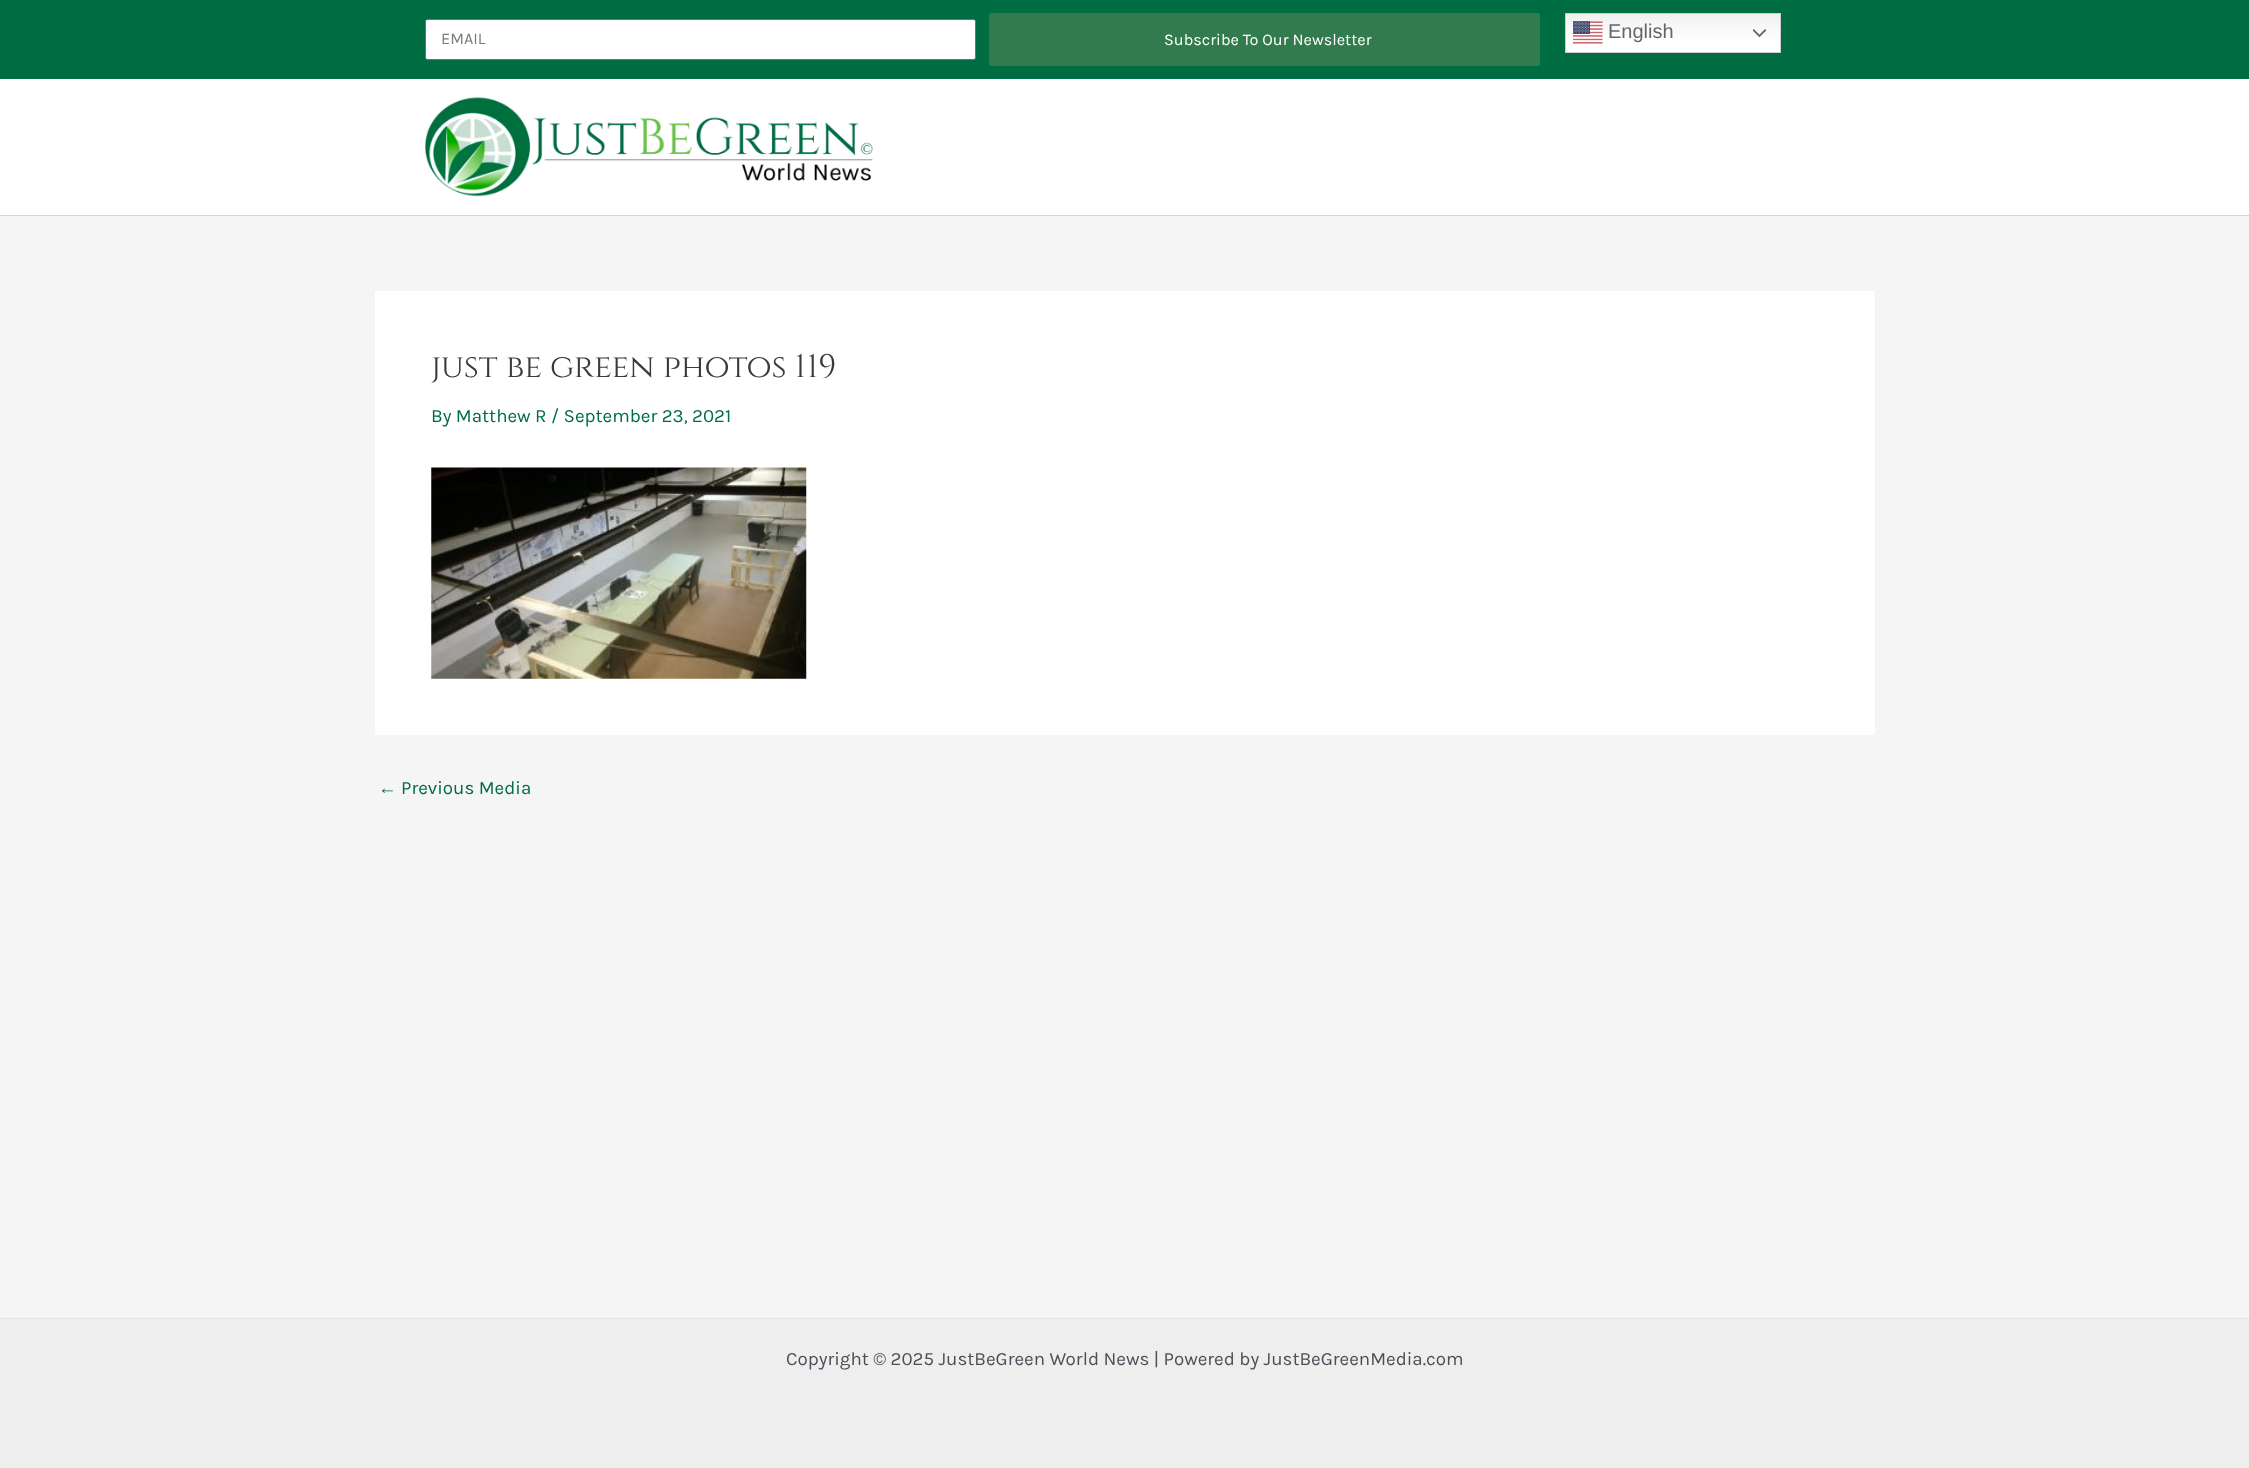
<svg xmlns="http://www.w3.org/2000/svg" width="2249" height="1468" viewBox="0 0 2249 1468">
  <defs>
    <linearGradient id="g1" gradientUnits="userSpaceOnUse" x1="1673" y1="12" x2="1673" y2="53"><stop offset="0" stop-color="#efefef"/><stop offset="0.7" stop-color="#ffffff"/></linearGradient>
  </defs>
  <rect width="100%" height="100%" fill="#f5f5f5"/>
  <rect x="0" y="0" width="2249" height="79" fill="#006c42"/>
  <rect x="425.5" y="19.5" width="550" height="40" rx="2" fill="#ffffff" stroke="#69727d"/>
  <text x="441" y="44" font-family="Karla" font-size="16.25" fill="#797a7c">EMAIL</text>
  <rect x="989" y="13" width="551" height="53" rx="2.5" fill="#327b4e"/>
  <text x="1164" y="45" font-family="Karla" font-size="16.25" fill="#ffffff">Subscribe To Our Newsletter</text>
  <rect x="1566" y="14" width="214" height="38" fill="url(#g1)"/>
  <rect x="1565.5" y="13.5" width="215" height="39" fill="none" stroke="#cccccc"/>
  <image x="1573" y="21" width="30" height="23" href="img1.png"/>
  <text x="1608" y="38" font-family="Liberation Sans" font-size="20" fill="#666666">English</text>
  <image x="1753" y="29" width="13" height="9" href="img2.png"/>
  <rect x="0" y="79" width="2249" height="136" fill="#ffffff"/>
  <rect x="0" y="215" width="2249" height="1" fill="#d6d6d6"/>
  <image x="425" y="97" width="448" height="100" href="img3.png"/>
  <rect x="375" y="291" width="1500" height="444" fill="#ffffff"/>
  <text x="431" y="377" font-family="Cinzel" font-size="32.5" fill="#3a3a3a">just be green photos 119</text>
  <text x="431" y="422" font-family="Karla" font-size="18.75" fill="#006c42">By Matthew R / September 23, 2021</text>
  <image x="431" y="467" width="376" height="212" href="img4.png"/>
  <text x="378" y="794" font-family="Liberation Sans" font-size="18.75" fill="#006c42">←</text>
  <text x="401" y="794" font-family="Karla" font-size="18.75" fill="#006c42">Previous Media</text>
  <rect x="0" y="1319" width="2249" height="149" fill="#eeeeee"/>
  <rect x="0" y="1318" width="2249" height="1" fill="#e5e5e5"/>
  <text x="786" y="1365" font-family="Karla" font-size="18.75" fill="#4b4f58">Copyright © 2025 JustBeGreen World News | Powered by JustBeGreenMedia.com</text>
</svg>
